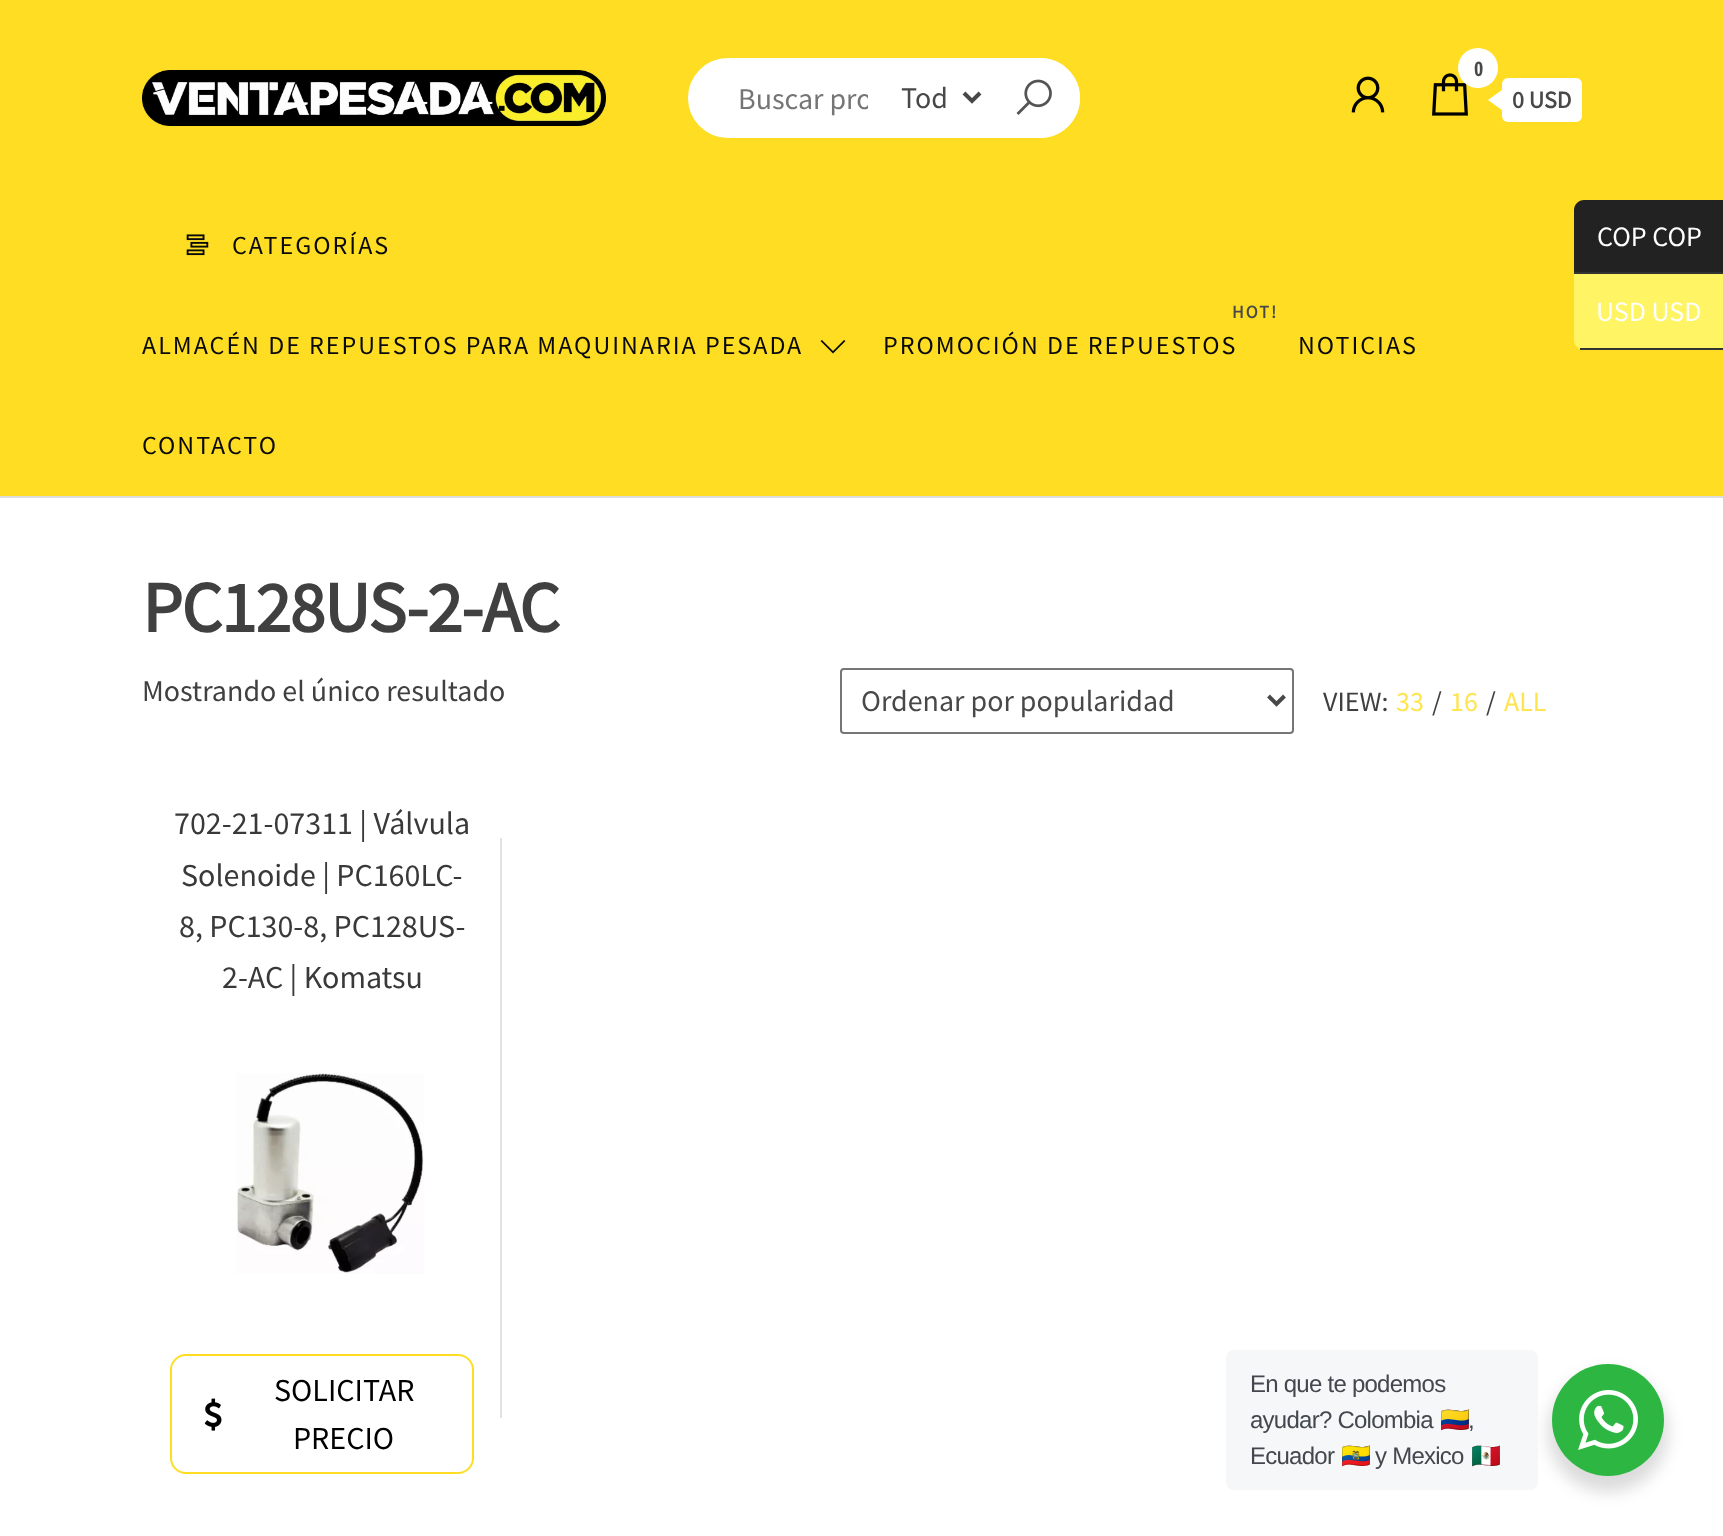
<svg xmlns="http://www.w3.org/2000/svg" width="1723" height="1536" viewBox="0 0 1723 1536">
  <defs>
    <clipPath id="clip1"><rect x="738" y="80" width="130" height="38"/></clipPath>
    <filter id="blur1" x="-50%" y="-200%" width="200%" height="500%"><feGaussianBlur stdDeviation="8"/></filter>
  </defs>
  <rect width="100%" height="100%" fill="#ffffff"/>
  <rect x="0" y="0" width="1723" height="496" fill="#ffdd22"/>
  <image x="142" y="70" width="464" height="56" href="img1.png"/>
  <rect x="687" y="57" width="394" height="82" rx="41" fill="#ffffff" stroke="#ffdd22" stroke-width="2"/>
  <g clip-path="url(#clip1)">
    <text x="738" y="109" font-family="Source Sans Pro" font-size="30" fill="#757575">Buscar pro</text>
  </g>
  <path d="M964 93L972 101L980 93" fill="none" stroke="#484848" stroke-width="4"/>
  <text x="901" y="108" font-family="Source Sans Pro" font-size="30" fill="#484848">Tod</text>
  <path d="M988 58H1040C1062 58 1080 76 1080 98C1080 120 1062 138 1040 138H988Z" fill="#ffffff"/>
  <image x="1016" y="79" width="36" height="36" href="img2.png"/>
  <image x="1351" y="76" width="34" height="37" href="img3.png"/>
  <image x="1432" y="73" width="36" height="43" href="img4.png"/>
  <circle cx="1478" cy="68" r="20" fill="#ffffff"/>
  <text x="1474" y="76" font-family="Open Sans Condensed" font-size="20" font-weight="bold" fill="#484848">0</text>
  <rect x="1502" y="78" width="80" height="44" rx="6" fill="#ffffff"/>
  <path d="M1502 90V110L1488 100Z" fill="#ffffff"/>
  <text x="1512" y="108" font-family="Source Sans Pro" font-size="24" font-weight="bold" fill="#484848">0 USD</text>
  <rect x="0" y="496" width="1723" height="2" fill="#dddddd"/>
  <image x="186" y="234" width="23" height="22" href="img5.png"/>
  <text x="232" y="254" font-family="Source Sans Pro" font-size="26" letter-spacing="2" fill="#0a0a0a">CATEGORÍAS</text>
  <text x="142" y="354" font-family="Source Sans Pro" font-size="26" letter-spacing="2" fill="#0a0a0a">ALMACÉN DE REPUESTOS PARA MAQUINARIA PESADA</text>
  <path d="M822 340L820.5 341L833 353.5L845.5 341L844 340L833 351Z" fill="#0a0a0a"/>
  <text x="1232" y="318" font-family="Source Sans Pro" font-size="18" font-weight="bold" letter-spacing="2" fill="#484848">HOT!</text>
  <text x="883" y="354" font-family="Source Sans Pro" font-size="26" letter-spacing="2" fill="#0a0a0a">PROMOCIÓN DE REPUESTOS</text>
  <text x="1298" y="354" font-family="Source Sans Pro" font-size="26" letter-spacing="2" fill="#0a0a0a">NOTICIAS</text>
  <text x="142" y="454" font-family="Source Sans Pro" font-size="26" letter-spacing="2" fill="#0a0a0a">CONTACTO</text>
  <text x="142" y="632" font-family="Source Sans Pro" font-size="72" font-weight="bold" letter-spacing="-1.5" fill="#404040">PC128US-2-AC</text>
  <text x="142" y="701" font-family="Source Sans Pro" font-size="30" fill="#404040">Mostrando el único resultado</text>
  <rect x="841" y="669" width="452" height="64" rx="3" fill="none" stroke="#767676" stroke-width="2"/>
  <path d="M1268.5 696L1276.5 704L1284.5 696" fill="none" stroke="#484848" stroke-width="4"/>
  <text x="861" y="711" font-family="Source Sans Pro" font-size="30" fill="#484848">Ordenar por popularidad</text>
  <text x="1323" y="711" font-family="Source Sans Pro" font-size="28" fill="#404040">VIEW:</text>
  <text x="1396" y="711" font-family="Source Sans Pro" font-size="28" fill="#ffe44e">33</text>
  <text x="1432" y="711" font-family="Source Sans Pro" font-size="28" fill="#404040">/</text>
  <text x="1450" y="711" font-family="Source Sans Pro" font-size="28" fill="#ffe44e">16</text>
  <text x="1486" y="711" font-family="Source Sans Pro" font-size="28" fill="#404040">/</text>
  <text x="1504" y="711" font-family="Source Sans Pro" font-size="28" fill="#ffe44e">ALL</text>
  <text x="174" y="834" font-family="Source Sans Pro" font-size="32" fill="#39393a">702-21-07311 | Válvula</text>
  <text x="181" y="886" font-family="Source Sans Pro" font-size="32" fill="#39393a">Solenoide | PC160LC-</text>
  <text x="179" y="937" font-family="Source Sans Pro" font-size="32" fill="#39393a">8, PC130-8, PC128US-</text>
  <text x="222" y="988" font-family="Source Sans Pro" font-size="32" fill="#39393a">2-AC | Komatsu</text>
  <image x="236" y="1073" width="188" height="201" href="img6.png"/>
  <rect x="500" y="838" width="2" height="580" fill="#e2e2e2"/>
  <rect x="171" y="1355" width="302" height="118" rx="15" fill="none" stroke="#ffdd22" stroke-width="2"/>
  <image x="204" y="1398" width="18" height="33" href="img7.png"/>
  <text x="274" y="1401" font-family="Source Sans Pro" font-size="32" fill="#000000">SOLICITAR</text>
  <text x="293" y="1449" font-family="Source Sans Pro" font-size="32" fill="#000000">PRECIO</text>
  <path d="M1584 200H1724V274H1574V210C1574 204.5 1578.5 200 1584 200Z" fill="#222222"/>
  <rect x="1574" y="272" width="149" height="2" fill="#333333"/>
  <text x="1597" y="246" font-family="Source Sans Pro" font-size="28" fill="#ffffff">COP COP</text>
  <path d="M1574 274H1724V350H1584C1578.5 350 1574 345.5 1574 340Z" fill="#fff463"/>
  <rect x="1580" y="348" width="143" height="2" fill="#333333"/>
  <text x="1596" y="321" font-family="Source Sans Pro" font-size="28" fill="#ffffff">USD USD</text>
  <rect x="1548" y="1372" width="120" height="120" rx="60" fill="#000000" fill-opacity="0.14" filter="url(#blur1)"/>
  <rect x="1226" y="1350" width="312" height="140" rx="8" fill="#f5f7f9"/>
  <text x="1250" y="1392" font-family="Liberation Sans" font-size="24" letter-spacing="-0.75" fill="#43474e">En que te podemos</text>
  <text x="1250" y="1428" font-family="Liberation Sans" font-size="24" letter-spacing="-0.75" fill="#43474e">ayudar? Colombia</text>
  <text x="1440" y="1428" font-family="Noto Color Emoji" font-size="24" letter-spacing="-0.75" fill="#43474e">🇨🇴</text>
  <text x="1468" y="1428" font-family="Liberation Sans" font-size="24" letter-spacing="-0.75" fill="#43474e">,</text>
  <text x="1250" y="1464" font-family="Liberation Sans" font-size="24" letter-spacing="-0.75" fill="#43474e">Ecuador</text>
  <text x="1341" y="1464" font-family="Noto Color Emoji" font-size="24" letter-spacing="-0.75" fill="#43474e">🇪🇨</text>
  <text x="1375" y="1464" font-family="Liberation Sans" font-size="24" letter-spacing="-0.75" fill="#43474e">y Mexico</text>
  <text x="1471" y="1464" font-family="Noto Color Emoji" font-size="24" letter-spacing="-0.75" fill="#43474e">🇲🇽</text>
  <circle cx="1608" cy="1420" r="56" fill="#2db742"/>
  <image x="1578" y="1390" width="60" height="60" href="img8.png"/>
</svg>
